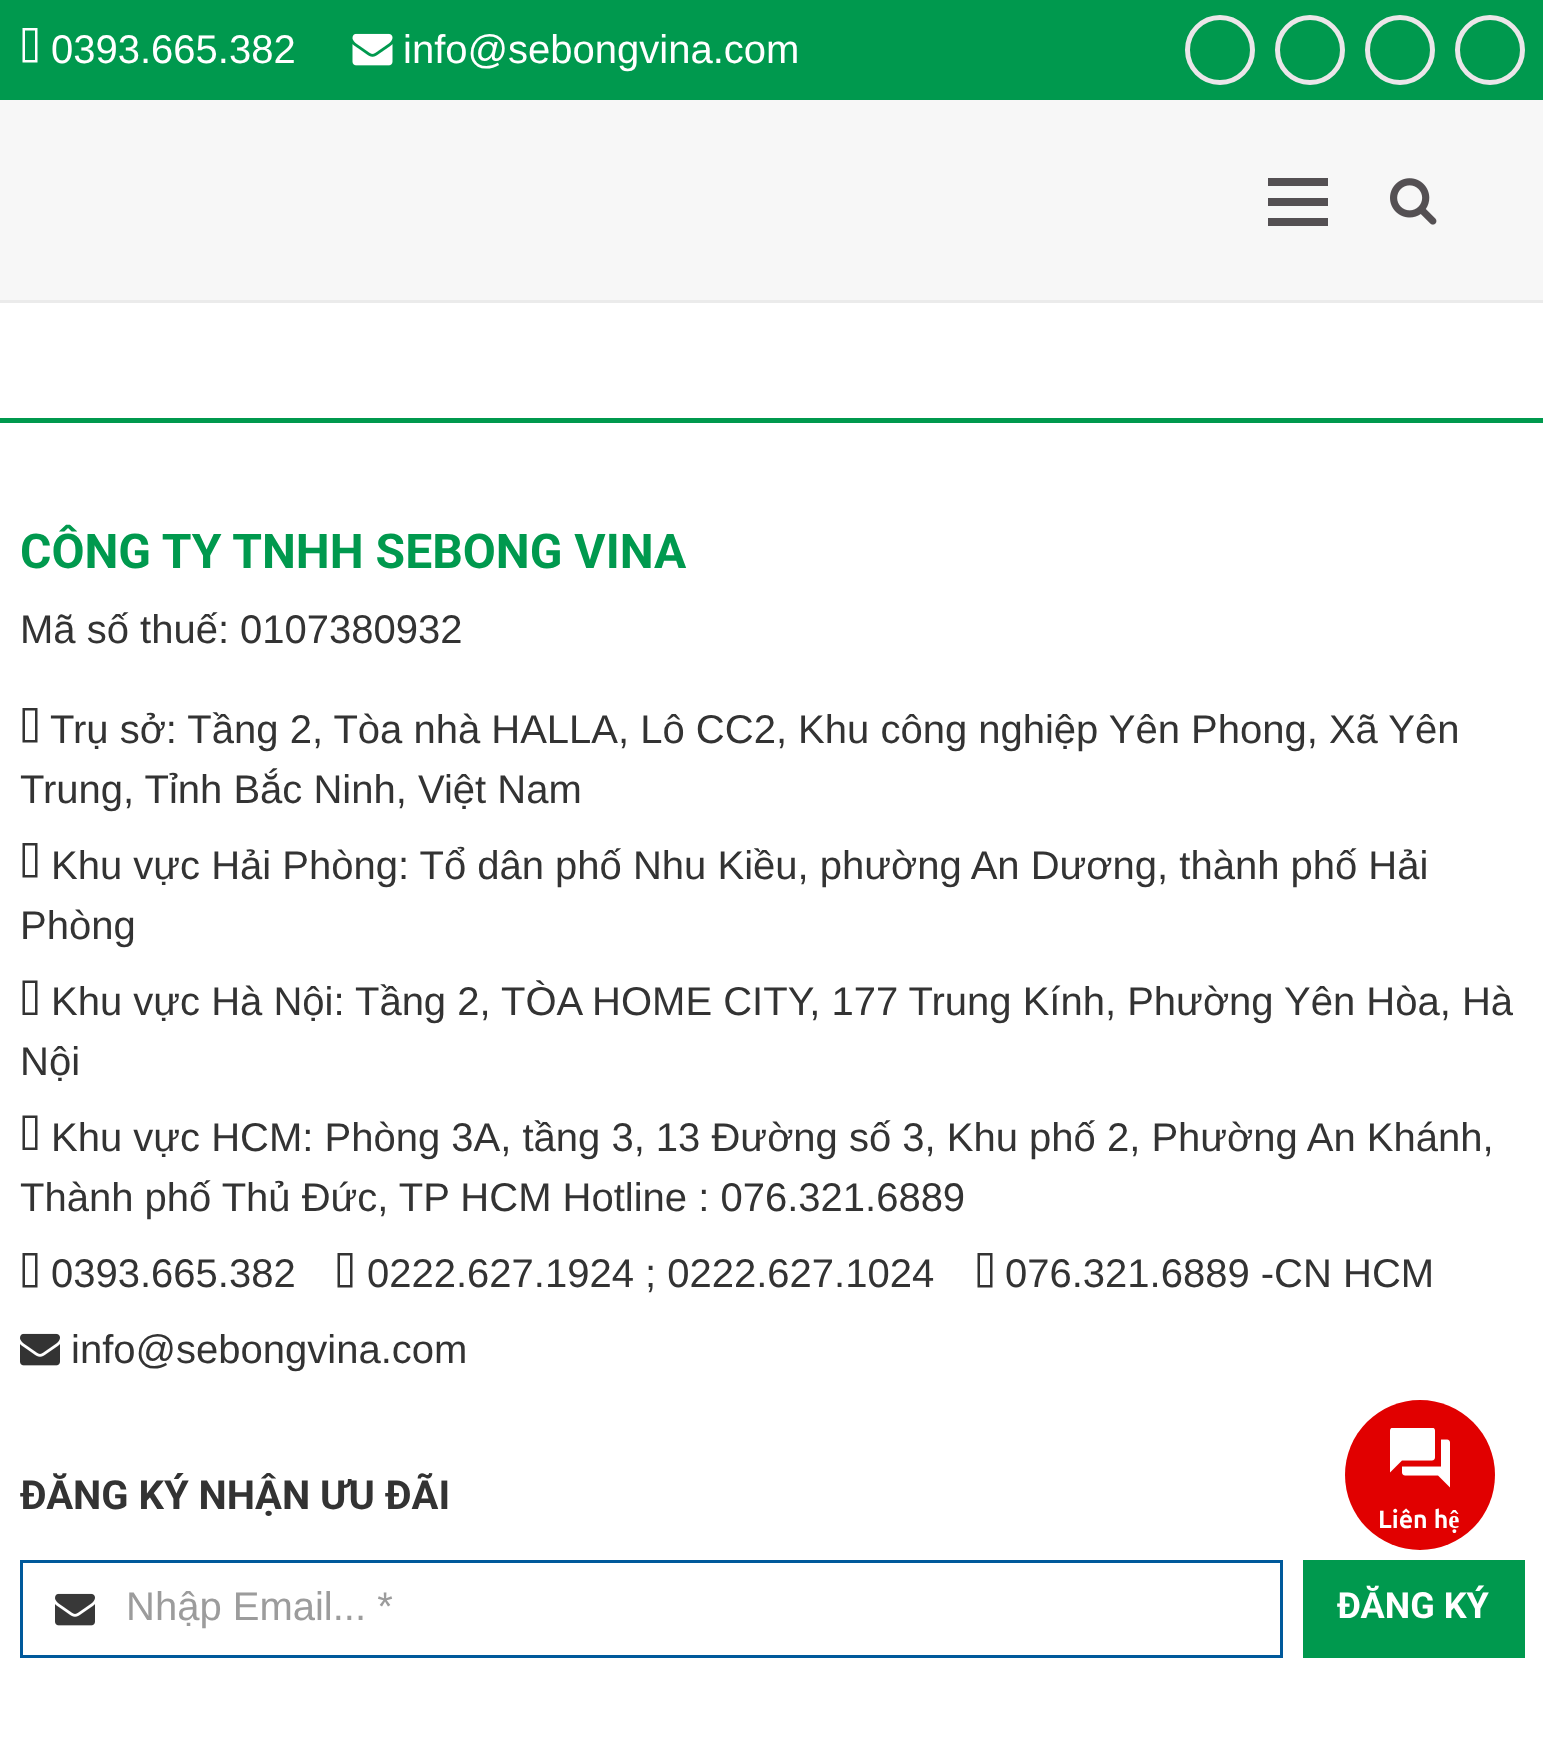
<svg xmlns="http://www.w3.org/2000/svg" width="1543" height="1748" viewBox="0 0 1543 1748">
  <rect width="100%" height="100%" fill="#ffffff"/>
  <rect x="0" y="0" width="1543" height="100" fill="#00994e"/>
  <path d="M25 60V30.5H35V60ZM22.5 62.5H37.5V28H22.5Z" fill="#ffffff"/>
  <text x="51" y="63" font-family="Liberation Sans" font-size="40" fill="#ffffff">0393.665.382</text>
  <image x="352" y="33" width="41" height="33" href="img1.png"/>
  <text x="403" y="63" font-family="Liberation Sans" font-size="40" fill="#ffffff">info@sebongvina.com</text>
  <circle cx="1220" cy="50" r="32.5" fill="none" stroke="#ebe6e9" stroke-width="5"/>
  <circle cx="1310" cy="50" r="32.5" fill="none" stroke="#ebe6e9" stroke-width="5"/>
  <circle cx="1400" cy="50" r="32.5" fill="none" stroke="#ebe6e9" stroke-width="5"/>
  <circle cx="1490" cy="50" r="32.5" fill="none" stroke="#ebe6e9" stroke-width="5"/>
  <rect x="0" y="300" width="1543" height="3" fill="#ebebeb"/>
  <rect x="0" y="100" width="1543" height="200" fill="#f7f7f7"/>
  <rect x="1268" y="198" width="60" height="8" fill="#545053"/>
  <rect x="1268" y="178" width="60" height="8" fill="#545053"/>
  <rect x="1268" y="218" width="60" height="8" fill="#545053"/>
  <image x="1390" y="178" width="47" height="47" href="img2.png"/>
  <rect x="0" y="418" width="1543" height="5" fill="#00994e"/>
  <text x="20" y="568" font-family="Roboto" font-size="48" font-weight="bold" fill="#00994e">CÔNG TY TNHH SEBONG VINA</text>
  <text x="20" y="643" font-family="Liberation Sans" font-size="40" fill="#333333">Mã số thuế: 0107380932</text>
  <path d="M25 740V710.5H35V740ZM22.5 742.5H37.5V708H22.5Z" fill="#333333"/>
  <text x="50" y="743" font-family="Liberation Sans" font-size="40" fill="#333333">Trụ sở: Tầng 2, Tòa nhà HALLA, Lô CC2, Khu công nghiệp Yên Phong, Xã Yên</text>
  <text x="20" y="803" font-family="Liberation Sans" font-size="40" fill="#333333">Trung, Tỉnh Bắc Ninh, Việt Nam</text>
  <path d="M25 875V845.5H35V875ZM22.5 877.5H37.5V843H22.5Z" fill="#333333"/>
  <text x="51" y="879" font-family="Liberation Sans" font-size="40" fill="#333333">Khu vực Hải Phòng: Tổ dân phố Nhu Kiều, phường An Dương, thành phố Hải</text>
  <text x="20" y="939" font-family="Liberation Sans" font-size="40" fill="#333333">Phòng</text>
  <path d="M25 1012.5V983H35V1012.5ZM22.5 1015H37.5V980.5H22.5Z" fill="#333333"/>
  <text x="51" y="1015" font-family="Liberation Sans" font-size="40" fill="#333333">Khu vực Hà Nội: Tầng 2, TÒA HOME CITY, 177 Trung Kính, Phường Yên Hòa, Hà</text>
  <text x="20" y="1075" font-family="Liberation Sans" font-size="40" fill="#333333">Nội</text>
  <path d="M25 1147.5V1118H35V1147.5ZM22.5 1150H37.5V1115.5H22.5Z" fill="#333333"/>
  <text x="51" y="1151" font-family="Liberation Sans" font-size="40" fill="#333333">Khu vực HCM: Phòng 3A, tầng 3, 13 Đường số 3, Khu phố 2, Phường An Khánh,</text>
  <text x="20" y="1211" font-family="Liberation Sans" font-size="40" fill="#333333">Thành phố Thủ Đức, TP HCM Hotline : 076.321.6889</text>
  <path d="M25 1285V1255.5H35V1285ZM22.5 1287.5H37.5V1253H22.5Z" fill="#333333"/>
  <text x="51" y="1287" font-family="Liberation Sans" font-size="40" fill="#333333">0393.665.382</text>
  <path d="M340 1285V1255.5H350V1285ZM337.5 1287.5H352.5V1253H337.5Z" fill="#333333"/>
  <text x="367" y="1287" font-family="Liberation Sans" font-size="40" fill="#333333">0222.627.1924 ; 0222.627.1024</text>
  <path d="M980 1285V1255.5H990V1285ZM977.5 1287.5H992.5V1253H977.5Z" fill="#333333"/>
  <text x="1005" y="1287" font-family="Liberation Sans" font-size="40" fill="#333333">076.321.6889 -CN HCM</text>
  <image x="20" y="1333" width="40" height="33" href="img3.png"/>
  <text x="71" y="1363" font-family="Liberation Sans" font-size="40" fill="#333333">info@sebongvina.com</text>
  <text x="20" y="1509" font-family="Roboto" font-size="40" font-weight="bold" fill="#333333">ĐĂNG KÝ NHẬN ƯU ĐÃI</text>
  <rect x="21.5" y="1561.5" width="1260" height="95" fill="none" stroke="#00599b" stroke-width="3"/>
  <image x="55" y="1593" width="40" height="33" href="img4.png"/>
  <text x="126" y="1620" font-family="Liberation Sans" font-size="40" fill="#9c9c9c">Nhập Email... *</text>
  <rect x="1303" y="1560" width="222" height="98" fill="#00994e"/>
  <text x="1337" y="1618" font-family="Roboto" font-size="36" font-weight="bold" fill="#ffffff">ĐĂNG KÝ</text>
  <circle cx="1420" cy="1475" r="75" fill="#e10000"/>
  <image x="1390" y="1428" width="60" height="60" href="img5.png"/>
  <text x="1378" y="1528" font-family="Ubuntu" font-size="25" font-weight="bold" fill="#ffffff">Liên hệ</text>
</svg>
